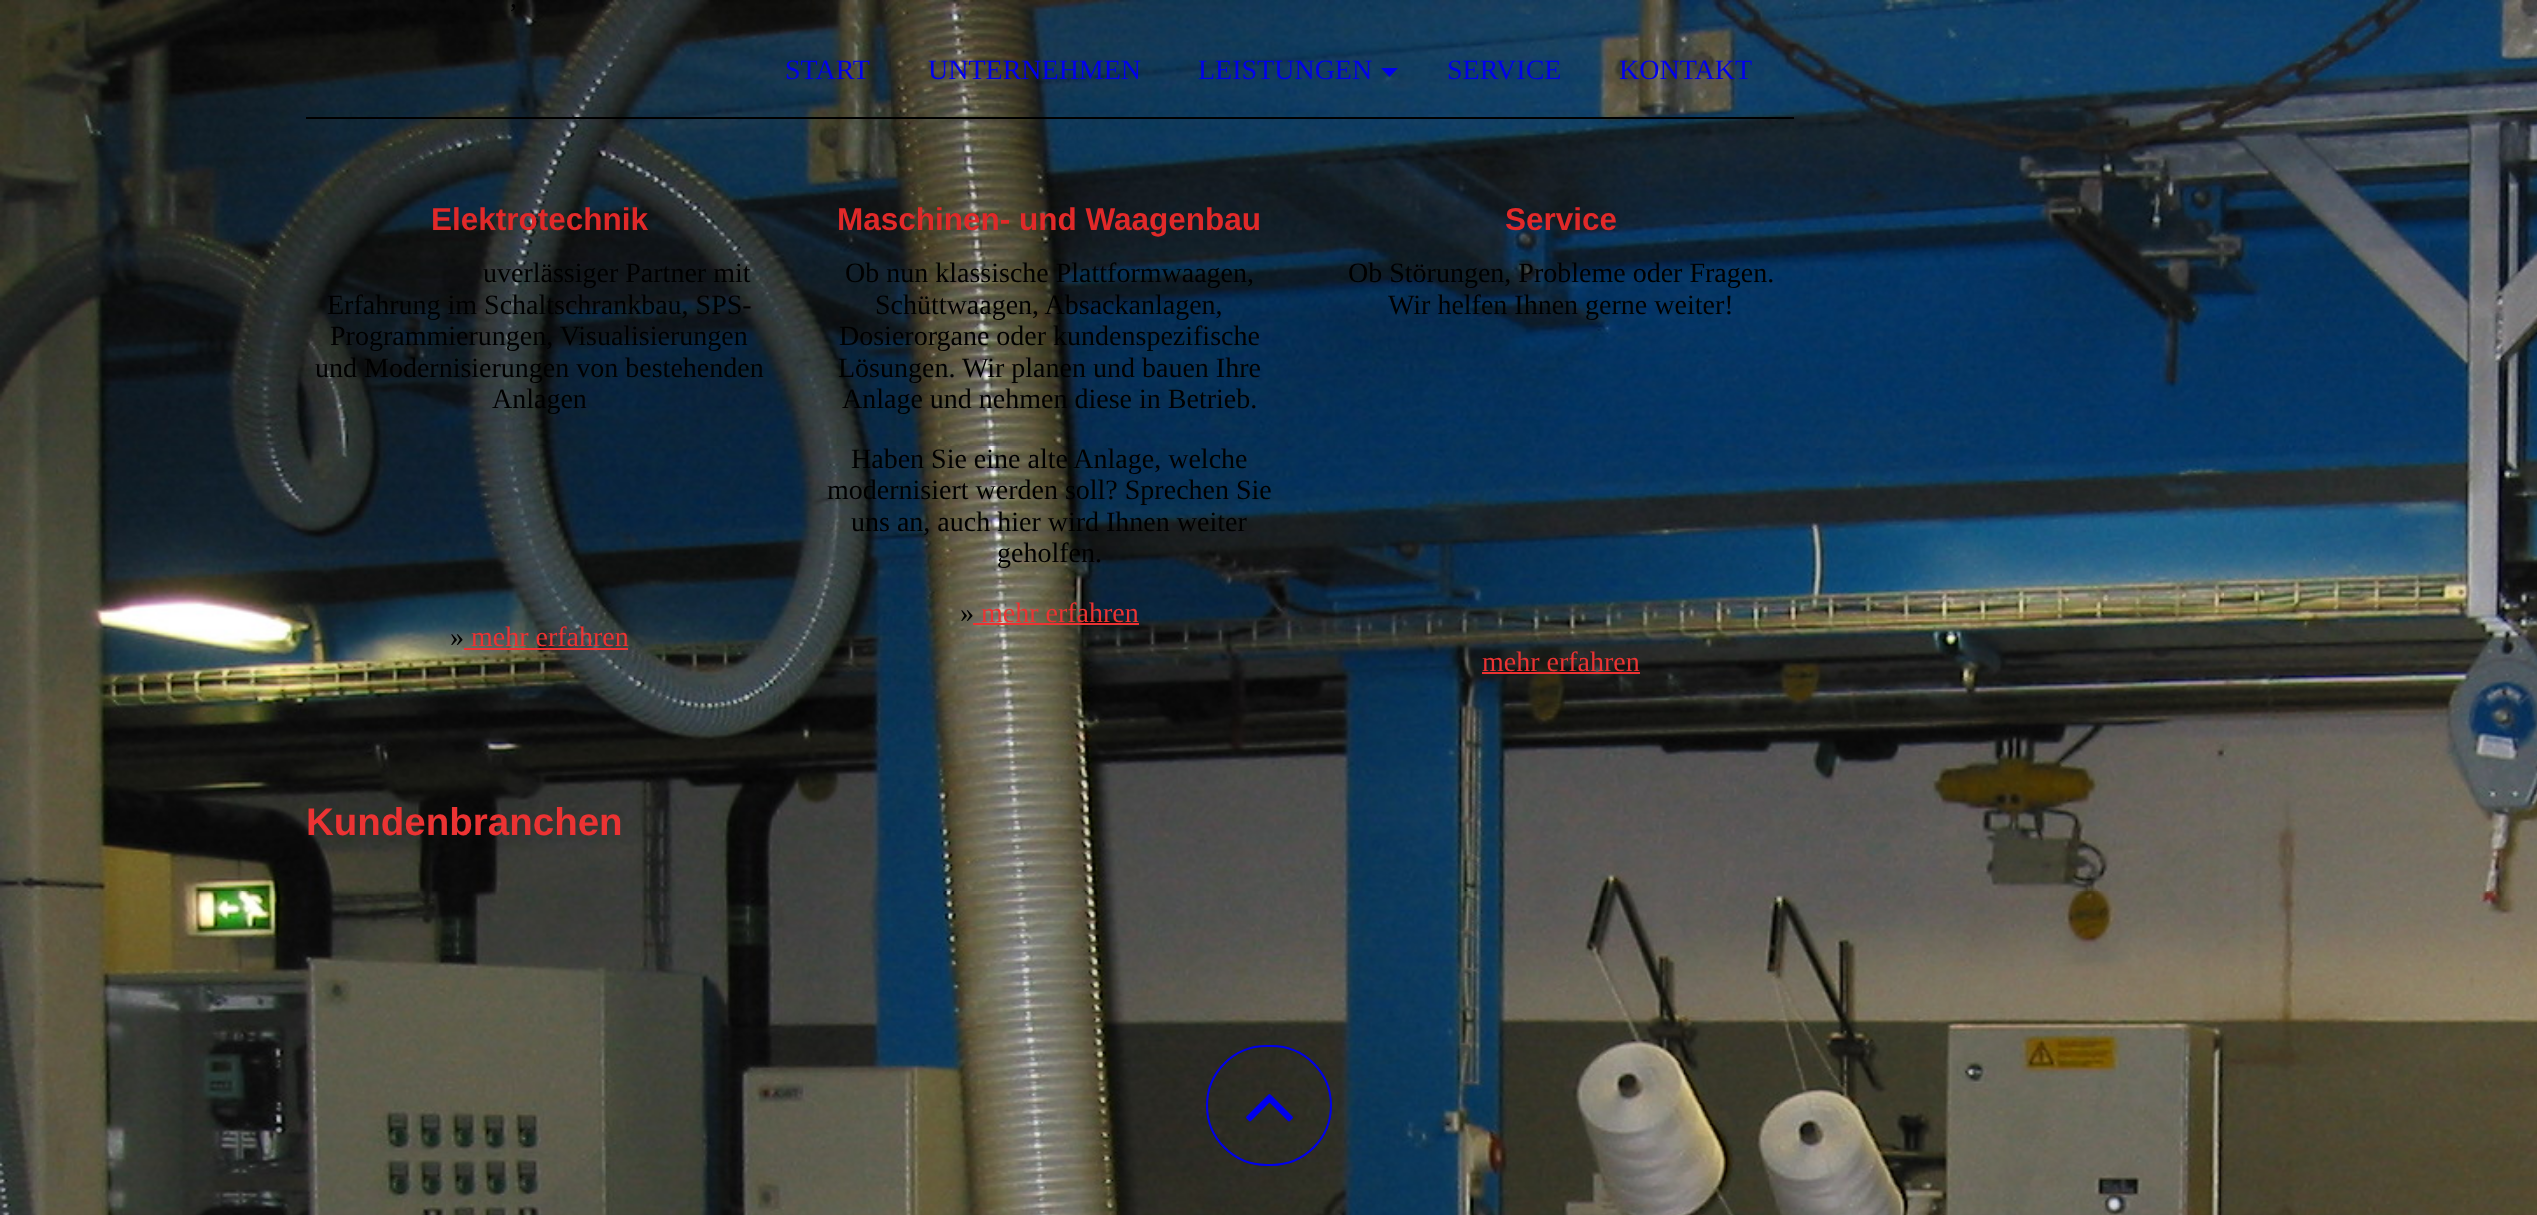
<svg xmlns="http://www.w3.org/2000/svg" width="2537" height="1215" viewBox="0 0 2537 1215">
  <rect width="100%" height="100%" fill="#ffffff"/>
  <image x="0" y="0" width="2537" height="1215" href="img1.png"/>
  <text x="510" y="7" font-family="Liberation Serif" font-size="28" fill="#000000">,</text>
  <rect x="306" y="117" width="1488" height="2" fill="#000000"/>
  <text x="431" y="230" font-family="Liberation Sans" font-size="31.5" font-weight="bold" fill="#e12929">Elektrotechnik</text>
  <text x="483" y="282" font-family="Liberation Serif" font-size="28" fill="#000000">uverlässiger Partner mit</text>
  <text x="327" y="314" font-family="Liberation Serif" font-size="28" fill="#000000">Erfahrung im Schaltschrankbau, SPS-</text>
  <text x="330" y="345" font-family="Liberation Serif" font-size="28" fill="#000000">Programmierungen, Visualisierungen</text>
  <text x="315" y="377" font-family="Liberation Serif" font-size="28" fill="#000000">und Modernisierungen von bestehenden</text>
  <text x="492" y="408" font-family="Liberation Serif" font-size="28" fill="#000000">Anlagen</text>
  <text x="450" y="646" font-family="Liberation Serif" font-size="28" fill="#000000">»</text>
  <rect x="464" y="648" width="164" height="2" fill="#ec3333"/>
  <text x="471" y="646" font-family="Liberation Serif" font-size="28" fill="#ec3333">mehr erfahren</text>
  <text x="837" y="230" font-family="Liberation Sans" font-size="31.5" font-weight="bold" fill="#e12929">Maschinen- und Waagenbau</text>
  <text x="845" y="282" font-family="Liberation Serif" font-size="28" fill="#000000">Ob nun klassische Plattformwaagen,</text>
  <text x="875" y="314" font-family="Liberation Serif" font-size="28" fill="#000000">Schüttwaagen, Absackanlagen,</text>
  <text x="839" y="345" font-family="Liberation Serif" font-size="28" fill="#000000">Dosierorgane oder kundenspezifische</text>
  <text x="838" y="377" font-family="Liberation Serif" font-size="28" fill="#000000">Lösungen. Wir planen und bauen Ihre</text>
  <text x="842" y="408" font-family="Liberation Serif" font-size="28" fill="#000000">Anlage und nehmen diese in Betrieb.</text>
  <text x="851" y="468" font-family="Liberation Serif" font-size="28" fill="#000000">Haben Sie eine alte Anlage, welche</text>
  <text x="827" y="499" font-family="Liberation Serif" font-size="28" fill="#000000">modernisiert werden soll? Sprechen Sie</text>
  <text x="851" y="531" font-family="Liberation Serif" font-size="28" fill="#000000">uns an, auch hier wird Ihnen weiter</text>
  <text x="997" y="562" font-family="Liberation Serif" font-size="28" fill="#000000">geholfen.</text>
  <text x="960" y="622" font-family="Liberation Serif" font-size="28" fill="#000000">»</text>
  <text x="981" y="622" font-family="Liberation Serif" font-size="28" fill="#ec3333">mehr erfahren</text>
  <rect x="973" y="623" width="166" height="2" fill="#ec3333"/>
  <text x="1505" y="230" font-family="Liberation Sans" font-size="31.5" font-weight="bold" fill="#e12929">Service</text>
  <text x="1348" y="282" font-family="Liberation Serif" font-size="28" fill="#000000">Ob Störungen, Probleme oder Fragen.</text>
  <text x="1388" y="314" font-family="Liberation Serif" font-size="28" fill="#000000">Wir helfen Ihnen gerne weiter!</text>
  <text x="1482" y="671" font-family="Liberation Serif" font-size="28" fill="#ec3333">mehr erfahren</text>
  <rect x="1482" y="672" width="158" height="2" fill="#ec3333"/>
  <text x="306" y="835" font-family="Liberation Sans" font-size="38.5" font-weight="bold" fill="#ec3333">Kundenbranchen</text>
  <text x="785" y="79" font-family="Liberation Serif" font-size="28" fill="#0000ee">START</text>
  <text x="928" y="79" font-family="Liberation Serif" font-size="28" fill="#0000ee">UNTERNEHMEN</text>
  <text x="1198" y="79" font-family="Liberation Serif" font-size="28" fill="#0000ee">LEISTUNGEN</text>
  <path d="M1381 68H1398L1389.5 77Z" fill="#0000ee"/>
  <text x="1447" y="79" font-family="Liberation Serif" font-size="28" fill="#0000ee">SERVICE</text>
  <text x="1619" y="79" font-family="Liberation Serif" font-size="28" fill="#0000ee">KONTAKT</text>
  <rect x="1207" y="1046" width="124" height="119" rx="59.5" fill="none" stroke="#0000ee" stroke-width="2"/>
  <image x="1246" y="1094" width="47" height="28" href="img2.png"/>
</svg>
